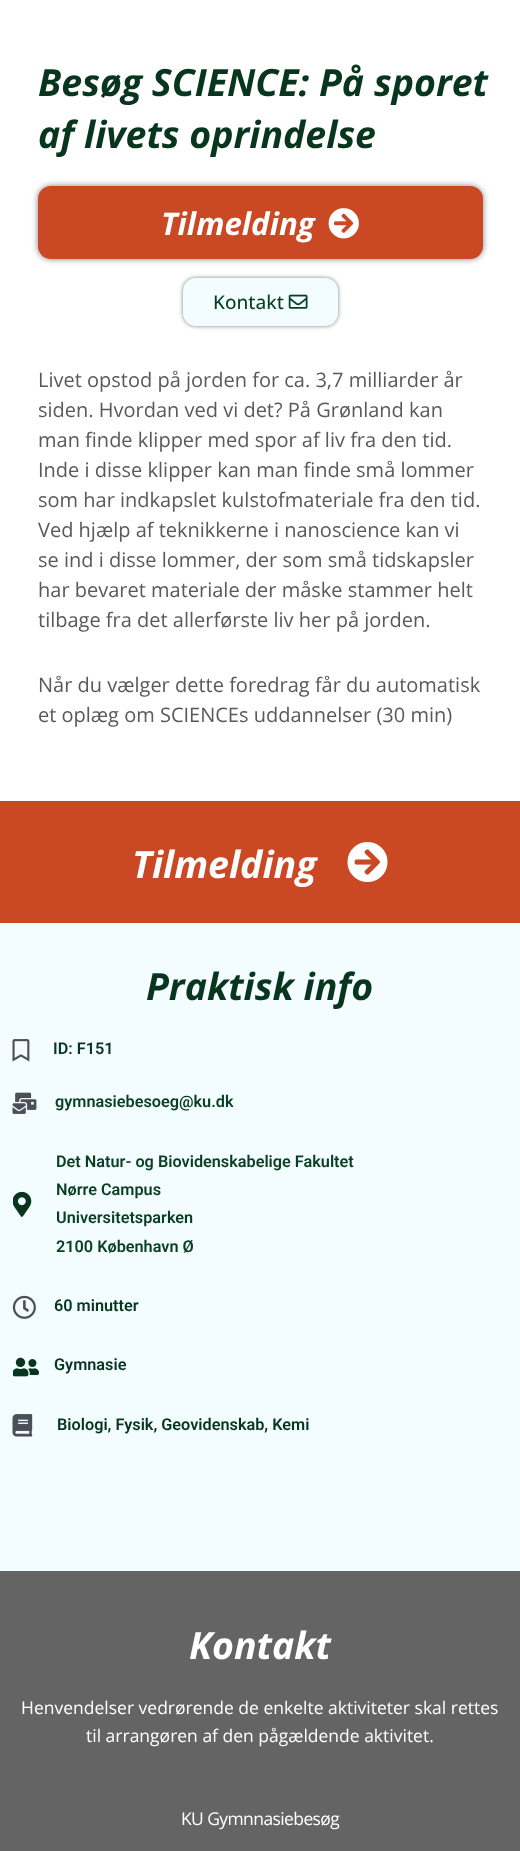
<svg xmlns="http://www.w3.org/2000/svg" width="520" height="1851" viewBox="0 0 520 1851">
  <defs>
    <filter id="blur1" x="-50%" y="-200%" width="200%" height="500%"><feGaussianBlur stdDeviation="3"/></filter>
    <filter id="blur2" x="-50%" y="-200%" width="200%" height="500%"><feGaussianBlur stdDeviation="2"/></filter>
  </defs>
  <rect width="100%" height="100%" fill="#ffffff"/>
  <text x="38" y="96" font-family="Open Sans" font-size="37.5" font-weight="bold" font-style="italic" fill="#08351d">Besøg SCIENCE: På sporet</text>
  <text x="38" y="148" font-family="Open Sans" font-size="37.5" font-weight="bold" font-style="italic" fill="#08351d">af livets oprindelse</text>
  <rect x="38" y="186" width="445" height="73" rx="13" fill="#000000" fill-opacity="0.5" filter="url(#blur1)"/>
  <rect x="38" y="186" width="445" height="73" rx="13" fill="#ca4824"/>
  <text x="161" y="235" font-family="Open Sans" font-size="31.25" font-weight="bold" font-style="italic" fill="#ffffff">Tilmelding</text>
  <image x="328" y="208" width="31" height="31" href="img1.png"/>
  <rect x="183" y="278" width="155" height="48" rx="13" fill="#000000" fill-opacity="0.5" filter="url(#blur2)"/>
  <rect x="183" y="278" width="155" height="48" rx="13" fill="#f3fcff"/>
  <text x="213" y="309" font-family="Open Sans" font-size="19" font-weight="500" fill="#083f22">Kontakt</text>
  <image x="288" y="294" width="20" height="15" href="img2.png"/>
  <text x="38" y="387" font-family="Open Sans" font-size="20" fill="#595959">Livet opstod på jorden for ca. 3,7 milliarder år</text>
  <text x="38" y="417" font-family="Open Sans" font-size="20" fill="#595959">siden. Hvordan ved vi det? På Grønland kan</text>
  <text x="38" y="447" font-family="Open Sans" font-size="20" fill="#595959">man finde klipper med spor af liv fra den tid.</text>
  <text x="38" y="477" font-family="Open Sans" font-size="20" fill="#595959">Inde i disse klipper kan man finde små lommer</text>
  <text x="38" y="507" font-family="Open Sans" font-size="20" fill="#595959">som har indkapslet kulstofmateriale fra den tid.</text>
  <text x="38" y="537" font-family="Open Sans" font-size="20" fill="#595959">Ved hjælp af teknikkerne i nanoscience kan vi</text>
  <text x="38" y="567" font-family="Open Sans" font-size="20" fill="#595959">se ind i disse lommer, der som små tidskapsler</text>
  <text x="38" y="597" font-family="Open Sans" font-size="20" fill="#595959">har bevaret materiale der måske stammer helt</text>
  <text x="38" y="627" font-family="Open Sans" font-size="20" fill="#595959">tilbage fra det allerførste liv her på jorden.</text>
  <text x="38" y="692" font-family="Open Sans" font-size="20" fill="#595959">Når du vælger dette foredrag får du automatisk</text>
  <text x="38" y="722" font-family="Open Sans" font-size="20" fill="#595959">et oplæg om SCIENCEs uddannelser (30 min)</text>
  <rect x="0" y="801" width="520" height="122" fill="#ca4824"/>
  <text x="132" y="878" font-family="Open Sans" font-size="37.5" font-weight="bold" font-style="italic" fill="#ffffff">Tilmelding</text>
  <image x="347" y="842" width="41" height="40" href="img3.png"/>
  <rect x="0" y="923" width="520" height="648" fill="#f3fcff"/>
  <text x="146" y="1000" font-family="Open Sans" font-size="37.5" font-weight="bold" font-style="italic" fill="#08351d">Praktisk info</text>
  <image x="12" y="1039" width="18" height="23" href="img4.png"/>
  <text x="53" y="1054" font-family="Roboto" font-size="16.25" font-weight="600" fill="#08351d">ID: F151</text>
  <image x="12" y="1092" width="25" height="22" href="img5.png"/>
  <text x="55" y="1107" font-family="Roboto" font-size="16.25" font-weight="600" fill="#083f22">gymnasiebesoeg@ku.dk</text>
  <image x="13" y="1191" width="19" height="26" href="img6.png"/>
  <text x="56" y="1167" font-family="Roboto" font-size="16.25" font-weight="600" fill="#083f22">Det Natur- og Biovidenskabelige Fakultet</text>
  <text x="56" y="1195" font-family="Roboto" font-size="16.25" font-weight="600" fill="#083f22">Nørre Campus</text>
  <text x="56" y="1223" font-family="Roboto" font-size="16.25" font-weight="600" fill="#083f22">Universitetsparken</text>
  <text x="56" y="1252" font-family="Roboto" font-size="16.25" font-weight="600" fill="#083f22">2100 København Ø</text>
  <image x="12" y="1295" width="24" height="24" href="img7.png"/>
  <text x="54" y="1311" font-family="Roboto" font-size="16.25" font-weight="600" fill="#08351d">60 minutter</text>
  <image x="13" y="1357" width="26" height="20" href="img8.png"/>
  <text x="54" y="1370" font-family="Roboto" font-size="16.25" font-weight="600" fill="#08351d">Gymnasie</text>
  <image x="12" y="1414" width="21" height="23" href="img9.png"/>
  <text x="57" y="1430" font-family="Roboto" font-size="16.25" font-weight="600" fill="#08351d">Biologi, Fysik, Geovidenskab, Kemi</text>
  <rect x="0" y="1571" width="520" height="280" fill="#646464"/>
  <text x="189" y="1659" font-family="Open Sans" font-size="37.5" font-weight="bold" font-style="italic" fill="#ffffff">Kontakt</text>
  <text x="21" y="1714" font-family="Open Sans" font-size="17.5" fill="#ffffff">Henvendelser vedrørende de enkelte aktiviteter skal rettes</text>
  <text x="86" y="1742" font-family="Open Sans" font-size="17.5" fill="#ffffff">til arrangøren af den pågældende aktivitet.</text>
  <text x="181" y="1825" font-family="Open Sans" font-size="17.5" letter-spacing="-0.6" fill="#ffffff">KU Gymnnasiebesøg</text>
</svg>
